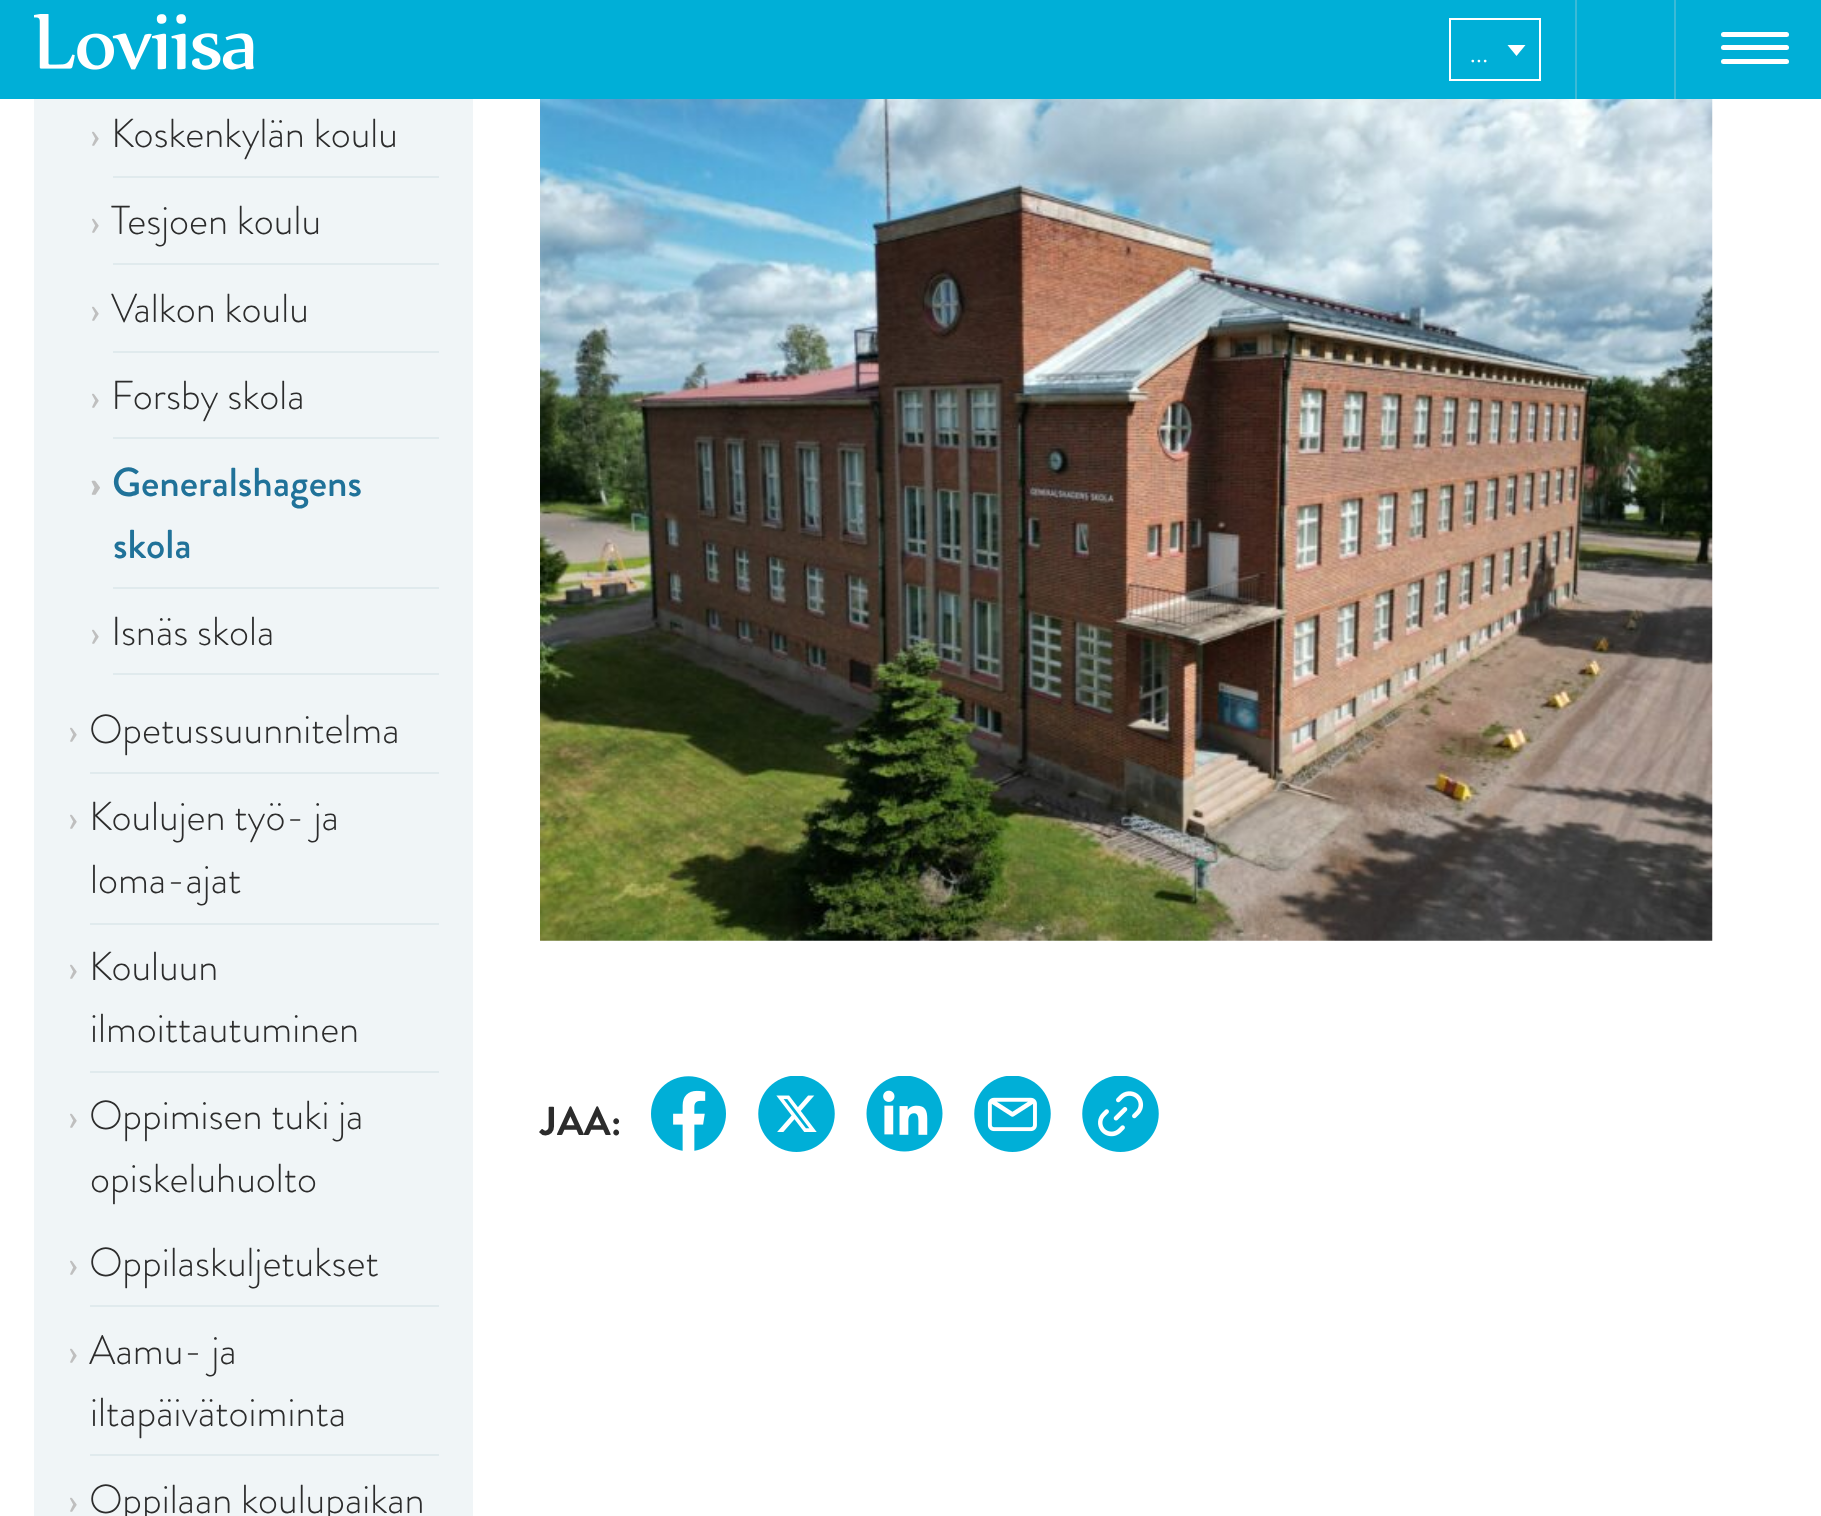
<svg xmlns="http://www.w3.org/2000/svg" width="1821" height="1516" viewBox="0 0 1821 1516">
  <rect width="100%" height="100%" fill="#ffffff"/>
  <rect x="0" y="0" width="1821" height="99" fill="#00afd7"/>
  <image x="34" y="14" width="220" height="56" href="img1.png"/>
  <rect x="1575" y="0" width="2" height="99" fill="#3bbad7"/>
  <rect x="1450" y="19" width="90" height="61" fill="none" stroke="#ffffff" stroke-width="2"/>
  <path d="M1507.5 45H1525.5L1516.5 56Z" fill="#ffffff"/>
  <text x="1469" y="62" font-family="Brandon Grotesque" font-size="32" font-weight="300" fill="#ffffff">…</text>
  <rect x="1674" y="0" width="2" height="99" fill="#3bbad7"/>
  <rect x="1721" y="32" width="68" height="5" rx="2.5" fill="#ffffff"/>
  <rect x="1721" y="45" width="68" height="5" rx="2.5" fill="#ffffff"/>
  <rect x="1721" y="59" width="68" height="5" rx="2.5" fill="#ffffff"/>
  <rect x="34" y="99" width="439" height="1417" fill="#f0f5f7"/>
  <rect x="113" y="176" width="326" height="2" fill="#e0eaed"/>
  <text x="90" y="147" font-family="Brandon Grotesque" font-size="40.5" fill="#bfbfbf">›</text>
  <text x="111" y="147" font-family="Brandon Grotesque" font-size="40.5" font-weight="300" fill="#2c2c2c">Koskenkylän koulu</text>
  <rect x="113" y="263" width="326" height="2" fill="#e0eaed"/>
  <text x="90" y="234" font-family="Brandon Grotesque" font-size="40.5" fill="#bfbfbf">›</text>
  <text x="111" y="234" font-family="Brandon Grotesque" font-size="40.5" font-weight="300" fill="#2c2c2c">Tesjoen koulu</text>
  <rect x="113" y="351" width="326" height="2" fill="#e0eaed"/>
  <text x="90" y="322" font-family="Brandon Grotesque" font-size="40.5" fill="#bfbfbf">›</text>
  <text x="111" y="322" font-family="Brandon Grotesque" font-size="40.5" font-weight="300" fill="#2c2c2c">Valkon koulu</text>
  <rect x="113" y="437" width="326" height="2" fill="#e0eaed"/>
  <text x="90" y="409" font-family="Brandon Grotesque" font-size="40.5" fill="#bfbfbf">›</text>
  <text x="111" y="409" font-family="Brandon Grotesque" font-size="40.5" font-weight="300" fill="#2c2c2c">Forsby skola</text>
  <rect x="113" y="587" width="326" height="2" fill="#e0eaed"/>
  <text x="90" y="496" font-family="Brandon Grotesque" font-size="40.5" font-weight="bold" fill="#bfbfbf">›</text>
  <text x="112" y="496" font-family="Brandon Grotesque" font-size="40.5" font-weight="500" fill="#207299">Generalshagens</text>
  <text x="113" y="558" font-family="Brandon Grotesque" font-size="40.5" font-weight="500" fill="#207299">skola</text>
  <rect x="113" y="673" width="326" height="2" fill="#e0eaed"/>
  <text x="90" y="645" font-family="Brandon Grotesque" font-size="40.5" fill="#bfbfbf">›</text>
  <text x="111" y="645" font-family="Brandon Grotesque" font-size="40.5" font-weight="300" fill="#2c2c2c">Isnäs skola</text>
  <rect x="90" y="772" width="349" height="2" fill="#e0eaed"/>
  <text x="68" y="743" font-family="Brandon Grotesque" font-size="40.5" fill="#bfbfbf">›</text>
  <text x="89" y="743" font-family="Brandon Grotesque" font-size="40.5" font-weight="300" fill="#2c2c2c">Opetussuunnitelma</text>
  <rect x="90" y="923" width="349" height="2" fill="#e0eaed"/>
  <text x="68" y="830" font-family="Brandon Grotesque" font-size="40.5" fill="#bfbfbf">›</text>
  <text x="89" y="830" font-family="Brandon Grotesque" font-size="40.5" font-weight="300" fill="#2c2c2c">Koulujen työ- ja</text>
  <text x="90" y="893" font-family="Brandon Grotesque" font-size="40.5" font-weight="300" fill="#2c2c2c">loma-ajat</text>
  <rect x="90" y="1071" width="349" height="2" fill="#e0eaed"/>
  <text x="68" y="980" font-family="Brandon Grotesque" font-size="40.5" fill="#bfbfbf">›</text>
  <text x="89" y="980" font-family="Brandon Grotesque" font-size="40.5" font-weight="300" fill="#2c2c2c">Kouluun</text>
  <text x="90" y="1042" font-family="Brandon Grotesque" font-size="40.5" font-weight="300" fill="#2c2c2c">ilmoittautuminen</text>
  <text x="68" y="1129" font-family="Brandon Grotesque" font-size="40.5" fill="#bfbfbf">›</text>
  <text x="89" y="1129" font-family="Brandon Grotesque" font-size="40.5" font-weight="300" fill="#2c2c2c">Oppimisen tuki ja</text>
  <text x="90" y="1192" font-family="Brandon Grotesque" font-size="40.5" font-weight="300" fill="#2c2c2c">opiskeluhuolto</text>
  <rect x="90" y="1305" width="349" height="2" fill="#e0eaed"/>
  <text x="68" y="1276" font-family="Brandon Grotesque" font-size="40.5" fill="#bfbfbf">›</text>
  <text x="89" y="1276" font-family="Brandon Grotesque" font-size="40.5" font-weight="300" fill="#2c2c2c">Oppilaskuljetukset</text>
  <rect x="90" y="1454" width="349" height="2" fill="#e0eaed"/>
  <text x="68" y="1364" font-family="Brandon Grotesque" font-size="40.5" fill="#bfbfbf">›</text>
  <text x="89" y="1364" font-family="Brandon Grotesque" font-size="40.5" font-weight="300" fill="#2c2c2c">Aamu- ja</text>
  <text x="90" y="1426" font-family="Brandon Grotesque" font-size="40.5" font-weight="300" fill="#2c2c2c">iltapäivätoiminta</text>
  <text x="68" y="1513" font-family="Brandon Grotesque" font-size="40.5" fill="#bfbfbf">›</text>
  <text x="89" y="1513" font-family="Brandon Grotesque" font-size="40.5" font-weight="300" fill="#2c2c2c">Oppilaan koulupaikan</text>
  <image x="540" y="99" width="1173" height="842" href="img2.png"/>
  <text x="540" y="1135" font-family="Brandon Grotesque" font-size="40.5" font-weight="bold" fill="#2c2c2c">JAA:</text>
  <image x="651" y="1076" width="75" height="75" href="img3.png"/>
  <image x="758" y="1076" width="77" height="76" href="img4.png"/>
  <image x="866" y="1076" width="77" height="76" href="img5.png"/>
  <image x="974" y="1076" width="77" height="76" href="img6.png"/>
  <image x="1082" y="1076" width="77" height="76" href="img7.png"/>
</svg>
